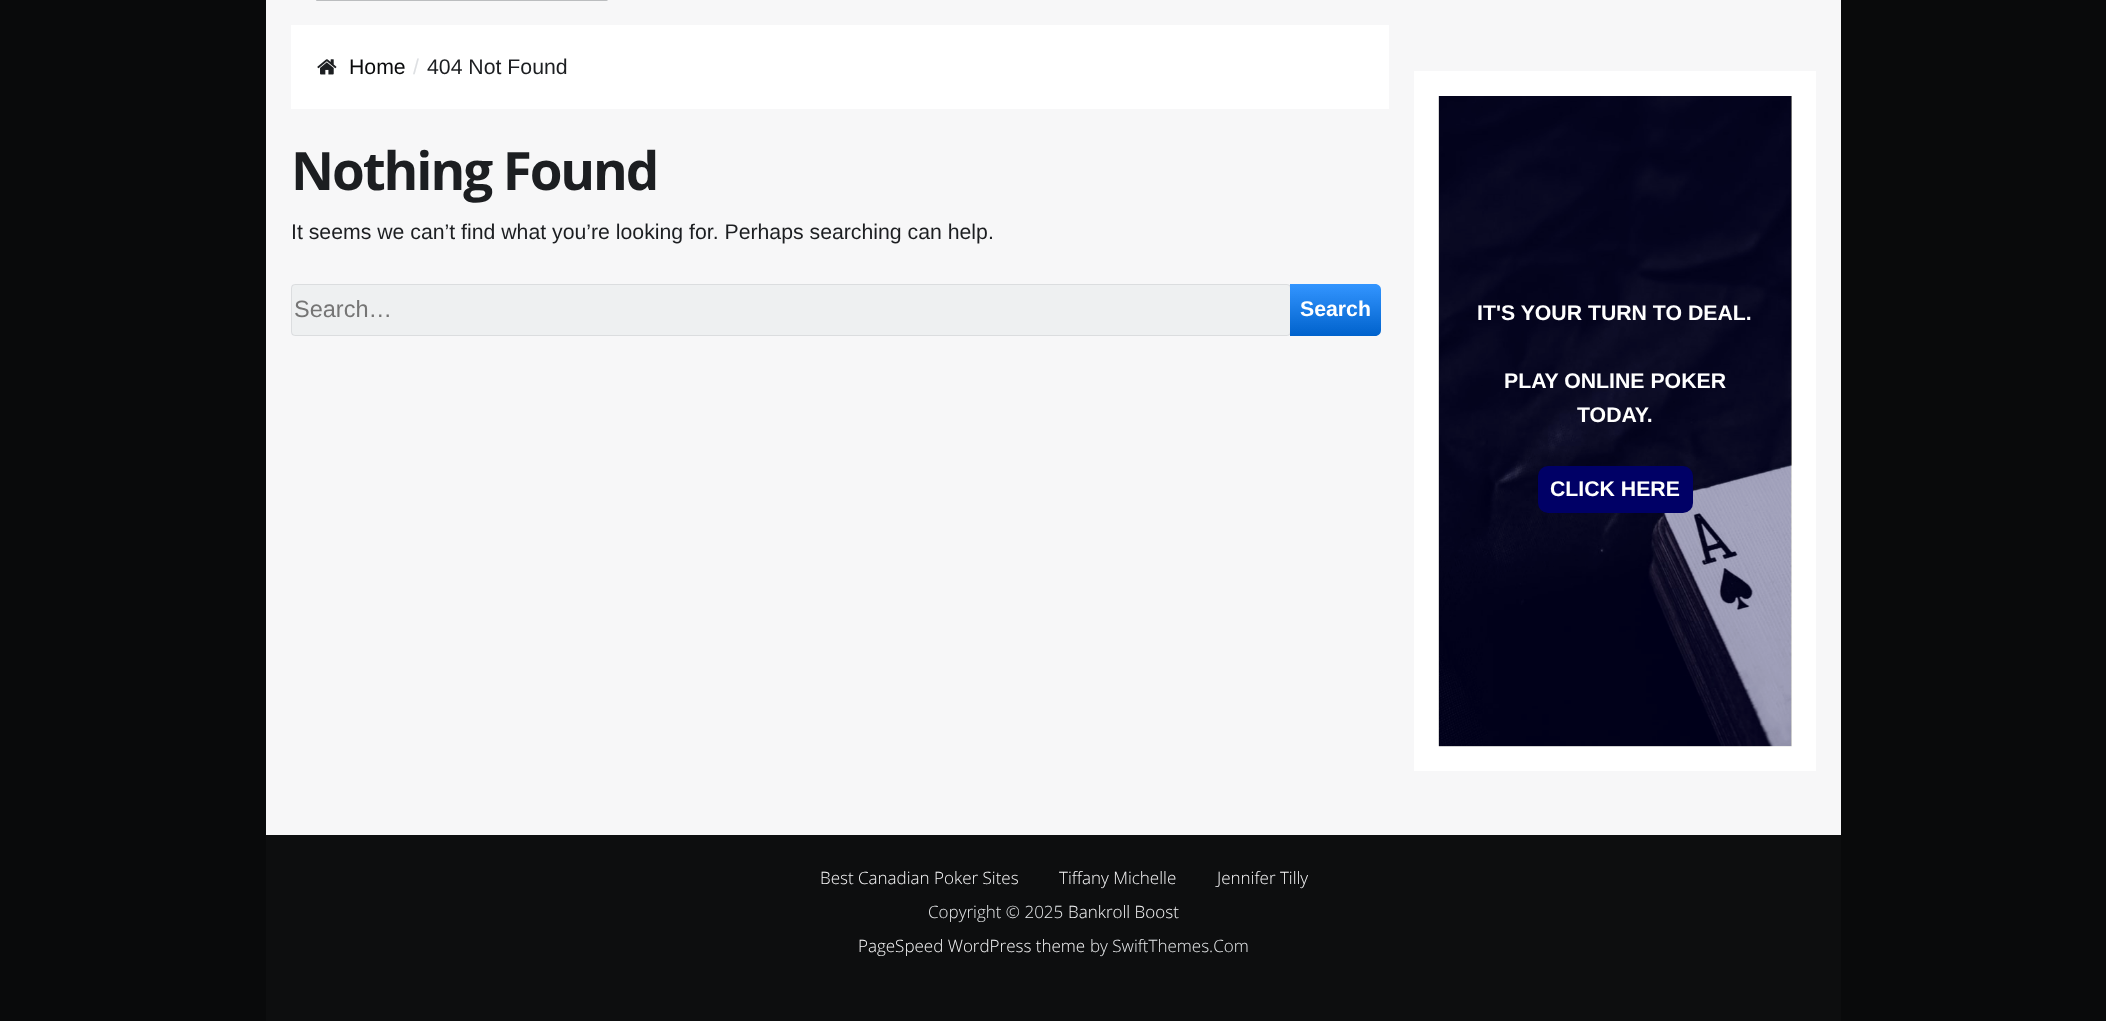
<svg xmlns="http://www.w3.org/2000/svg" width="2106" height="1021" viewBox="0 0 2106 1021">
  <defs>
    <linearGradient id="g1" gradientUnits="userSpaceOnUse" x1="1336" y1="284" x2="1336" y2="336"><stop offset="0" stop-color="#3395ff"/><stop offset="1" stop-color="#0062cc"/></linearGradient>
  </defs>
  <rect width="100%" height="100%" fill="#090a0b"/>
  <rect x="266" y="0" width="1575" height="835" fill="#f7f7f8"/>
  <image x="316" y="0" width="292" height="1" href="img1.png"/>
  <rect x="291" y="25" width="1098" height="84" fill="#ffffff"/>
  <image x="317" y="59" width="20" height="16" href="img2.png"/>
  <text x="349" y="74" font-family="Liberation Sans" font-size="21.25" fill="#090a0b">Home</text>
  <text x="413" y="74" font-family="Liberation Sans" font-size="21.25" fill="#dee0e3">/</text>
  <text x="427" y="74" font-family="Liberation Sans" font-size="21.25" fill="#1c1e21">404 Not Found</text>
  <text x="291" y="190" font-family="Open Sans" font-size="53" font-weight="bold" letter-spacing="-2.1" fill="#1c1e21">Nothing Found</text>
  <text x="291" y="239" font-family="Liberation Sans" font-size="21.25" fill="#1c1e21">It seems we can’t find what you’re looking for. Perhaps searching can help.</text>
  <rect x="291" y="284" width="1000" height="52" rx="4" fill="#eef0f1"/>
  <rect x="291.5" y="284.5" width="999" height="51" rx="3.5" fill="none" stroke="#383d42" stroke-opacity="0.1"/>
  <text x="294" y="317" font-family="Liberation Sans" font-size="23.5" fill="#757575">Search…</text>
  <path d="M1290 284H1375C1378.5 284 1381 286.5 1381 290V330C1381 333.5 1378.5 336 1375 336H1290Z" fill="url(#g1)"/>
  <text x="1300" y="316" font-family="Liberation Sans" font-size="21.25" font-weight="bold" fill="#ffffff">Search</text>
  <rect x="1414" y="71" width="402" height="700" fill="#ffffff"/>
  <image x="1438" y="96" width="354" height="651" href="img3.png"/>
  <text x="1477" y="320" font-family="Liberation Sans" font-size="21.25" font-weight="bold" fill="#ffffff">IT'S YOUR TURN TO DEAL.</text>
  <text x="1504" y="388" font-family="Liberation Sans" font-size="21.25" font-weight="bold" fill="#ffffff">PLAY ONLINE POKER</text>
  <text x="1577" y="422" font-family="Liberation Sans" font-size="21.25" font-weight="bold" fill="#ffffff">TODAY.</text>
  <rect x="1538" y="466" width="155" height="47" rx="10" fill="#000066"/>
  <text x="1550" y="496" font-family="Liberation Sans" font-size="21.25" font-weight="bold" fill="#ffffff">CLICK HERE</text>
  <rect x="266" y="835" width="1575" height="186" fill="#0d0e0f"/>
  <text x="820" y="884" font-family="Open Sans" font-size="17" font-weight="300" fill="#f7f7f8">Best Canadian Poker Sites</text>
  <text x="1059" y="884" font-family="Open Sans" font-size="17" font-weight="300" fill="#f7f7f8">Tiffany Michelle</text>
  <text x="1217" y="884" font-family="Open Sans" font-size="17" font-weight="300" fill="#f7f7f8">Jennifer Tilly</text>
  <text x="928" y="918" font-family="Open Sans" font-size="17" font-weight="300" fill="#e6e8ea">Copyright © 2025</text>
  <text x="1068" y="918" font-family="Open Sans" font-size="17" font-weight="300" fill="#f7f7f8">Bankroll Boost</text>
  <text x="858" y="952" font-family="Open Sans" font-size="17" font-weight="300" fill="#f7f7f8">PageSpeed WordPress theme</text>
  <text x="1090" y="952" font-family="Open Sans" font-size="17" font-weight="300" fill="#e6e8ea">by SwiftThemes.Com</text>
</svg>
